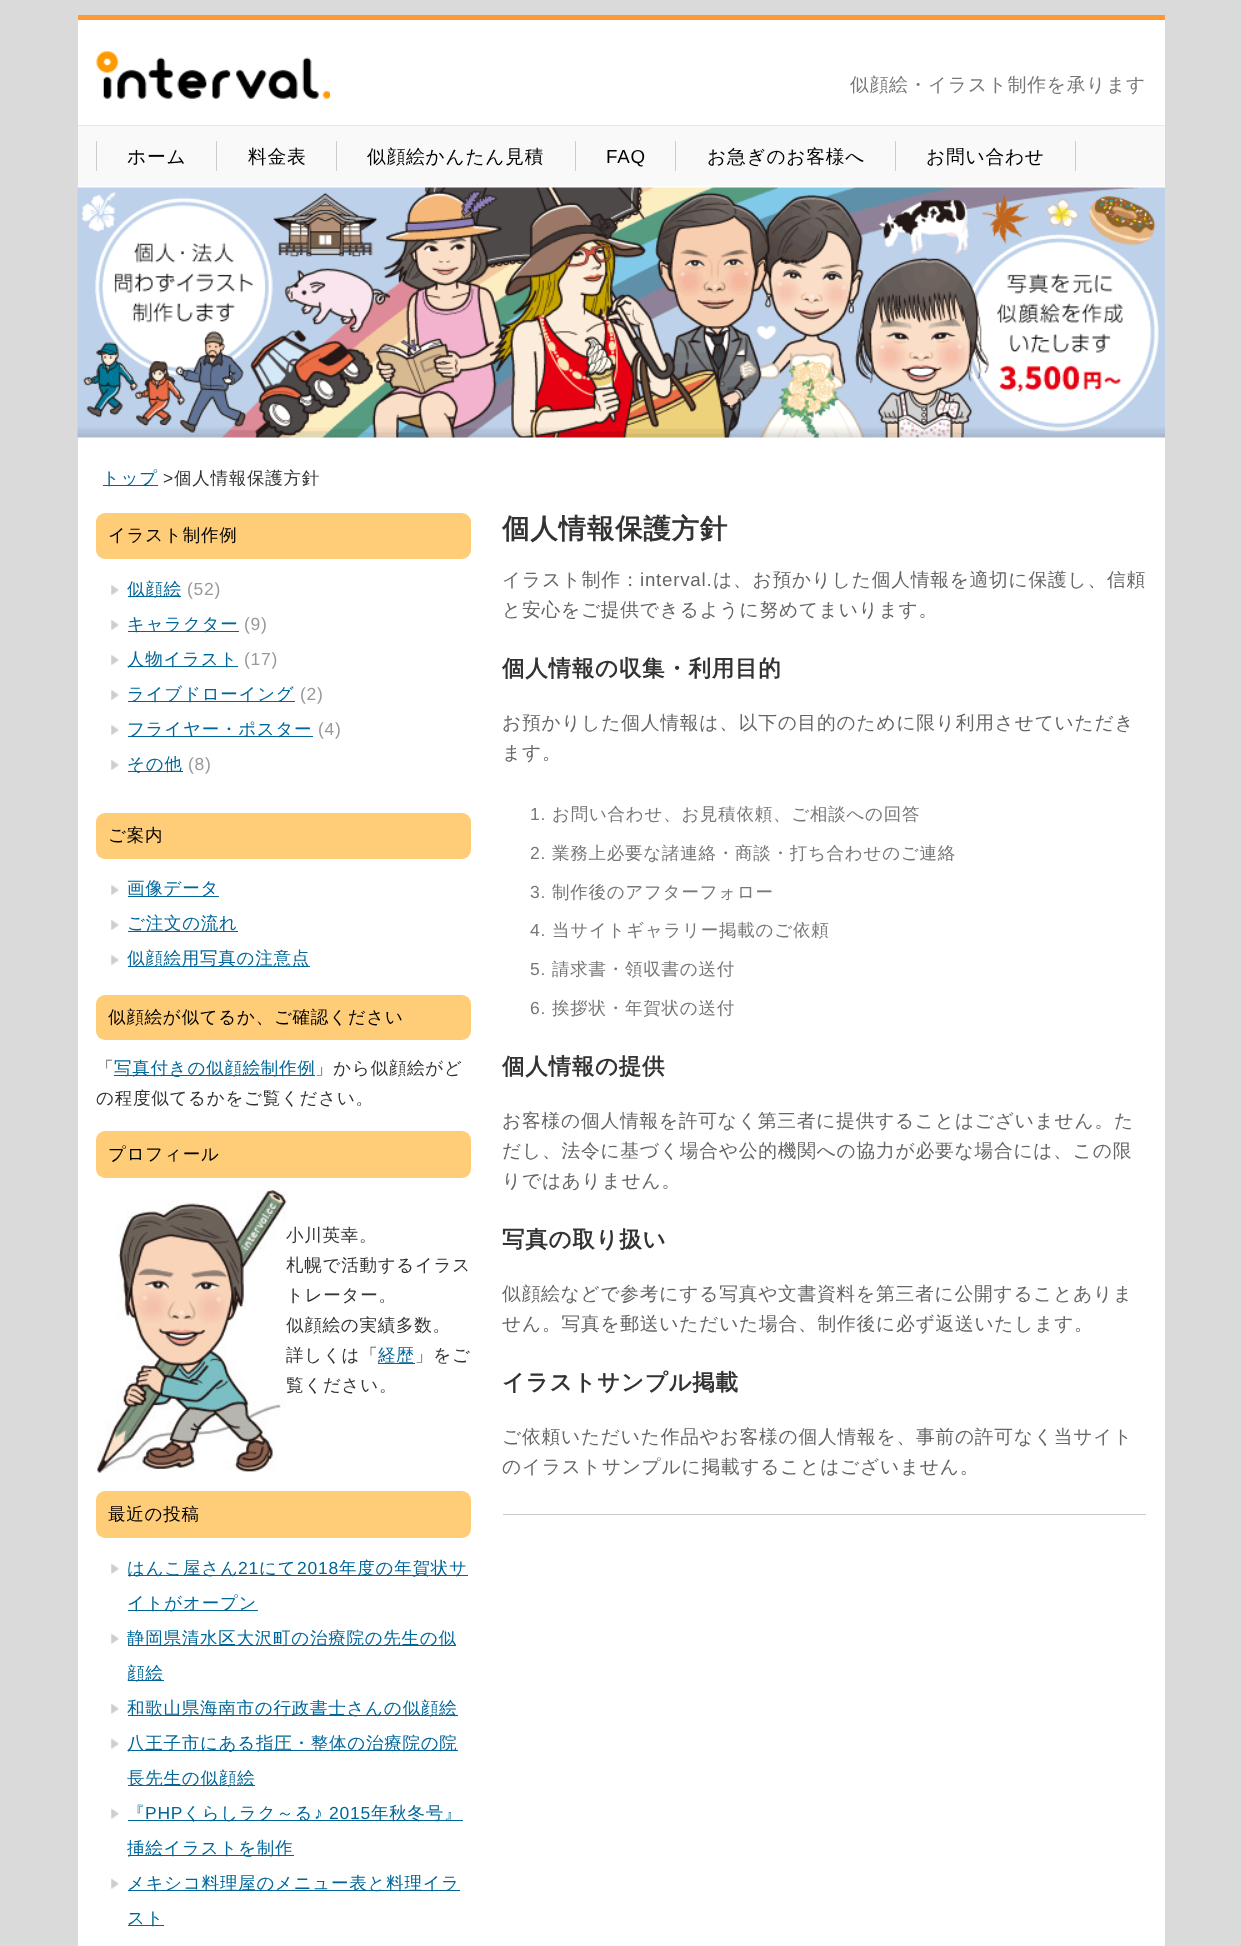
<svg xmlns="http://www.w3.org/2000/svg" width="1241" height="1946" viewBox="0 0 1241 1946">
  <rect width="100%" height="100%" fill="#dadada"/>
  <rect x="78" y="20" width="1087" height="1926" fill="#ffffff"/>
  <rect x="78" y="15" width="1087" height="5" fill="#ff9933"/>
  <image x="96" y="51" width="234" height="48" href="img1.png"/>
  <text x="850" y="91" font-family="WenQuanYi Zen Hei" font-size="18.75" font-weight="500" letter-spacing="0.75" fill="#777777">似顔絵・イラスト制作を承ります</text>
  <rect x="78" y="126" width="1087" height="60" fill="#f9f9f9"/>
  <rect x="78" y="125" width="1087" height="1" fill="#e8e8e8"/>
  <rect x="216" y="141" width="1" height="30" fill="#cccccc"/>
  <rect x="96" y="141" width="1" height="30" fill="#cccccc"/>
  <text x="127" y="163" font-family="WenQuanYi Zen Hei" font-size="18.75" font-weight="500" letter-spacing="0.75" fill="#000000">ホーム</text>
  <rect x="336" y="141" width="1" height="30" fill="#cccccc"/>
  <text x="248" y="163" font-family="WenQuanYi Zen Hei" font-size="18.75" font-weight="500" letter-spacing="0.75" fill="#000000">料金表</text>
  <rect x="575" y="141" width="1" height="30" fill="#cccccc"/>
  <text x="367" y="163" font-family="WenQuanYi Zen Hei" font-size="18.75" font-weight="500" letter-spacing="0.75" fill="#000000">似顔絵かんたん見積</text>
  <rect x="675" y="141" width="1" height="30" fill="#cccccc"/>
  <text x="606" y="163" font-family="Liberation Sans" font-size="18.75" letter-spacing="0.75" fill="#000000">FAQ</text>
  <rect x="895" y="141" width="1" height="30" fill="#cccccc"/>
  <text x="707" y="163" font-family="WenQuanYi Zen Hei" font-size="18.75" font-weight="500" letter-spacing="0.75" fill="#000000">お急ぎのお客様へ</text>
  <rect x="1075" y="141" width="1" height="30" fill="#cccccc"/>
  <text x="926" y="163" font-family="WenQuanYi Zen Hei" font-size="18.75" font-weight="500" letter-spacing="0.75" fill="#000000">お問い合わせ</text>
  <image x="77" y="187" width="1088" height="251" href="img2.png"/>
  <rect x="103" y="485" width="55" height="1" fill="#006699"/>
  <text x="102" y="484" font-family="WenQuanYi Zen Hei" font-size="17.5" font-weight="500" letter-spacing="0.75" fill="#006699">トップ</text>
  <text x="163" y="484" font-family="Liberation Sans" font-size="17.5" letter-spacing="0.75" fill="#333333">&gt;</text>
  <text x="174" y="484" font-family="WenQuanYi Zen Hei" font-size="17.5" font-weight="500" letter-spacing="0.75" fill="#333333">個人情報保護方針</text>
  <rect x="96" y="513" width="375" height="46" rx="9" fill="#ffcc77"/>
  <text x="108" y="541" font-family="WenQuanYi Zen Hei" font-size="17.5" font-weight="500" letter-spacing="0.75" fill="#000000">イラスト制作例</text>
  <image x="111" y="585" width="8" height="10" href="img3.png"/>
  <rect x="128" y="596" width="53" height="1" fill="#006699"/>
  <text x="127" y="595" font-family="WenQuanYi Zen Hei" font-size="17.5" font-weight="500" letter-spacing="0.75" fill="#006699">似顔絵</text>
  <text x="187" y="595" font-family="Liberation Sans" font-size="17.5" letter-spacing="0.75" fill="#999999">(52)</text>
  <image x="111" y="620" width="8" height="10" href="img4.png"/>
  <rect x="128" y="631" width="111" height="1" fill="#006699"/>
  <text x="127" y="630" font-family="WenQuanYi Zen Hei" font-size="17.5" font-weight="500" letter-spacing="0.75" fill="#006699">キャラクター</text>
  <text x="244" y="630" font-family="Liberation Sans" font-size="17.5" letter-spacing="0.75" fill="#999999">(9)</text>
  <image x="111" y="655" width="8" height="10" href="img4.png"/>
  <rect x="128" y="666" width="110" height="1" fill="#006699"/>
  <text x="127" y="665" font-family="WenQuanYi Zen Hei" font-size="17.5" font-weight="500" letter-spacing="0.75" fill="#006699">人物イラスト</text>
  <text x="244" y="665" font-family="Liberation Sans" font-size="17.5" letter-spacing="0.75" fill="#999999">(17)</text>
  <image x="111" y="690" width="8" height="10" href="img4.png"/>
  <rect x="128" y="701" width="167" height="1" fill="#006699"/>
  <text x="127" y="700" font-family="WenQuanYi Zen Hei" font-size="17.5" font-weight="500" letter-spacing="0.75" fill="#006699">ライブドローイング</text>
  <text x="300" y="700" font-family="Liberation Sans" font-size="17.5" letter-spacing="0.75" fill="#999999">(2)</text>
  <image x="111" y="725" width="8" height="10" href="img4.png"/>
  <rect x="128" y="736" width="185" height="1" fill="#006699"/>
  <text x="127" y="735" font-family="WenQuanYi Zen Hei" font-size="17.5" font-weight="500" letter-spacing="0.75" fill="#006699">フライヤー・ポスター</text>
  <text x="318" y="735" font-family="Liberation Sans" font-size="17.5" letter-spacing="0.75" fill="#999999">(4)</text>
  <image x="111" y="760" width="8" height="10" href="img4.png"/>
  <rect x="128" y="771" width="55" height="1" fill="#006699"/>
  <text x="127" y="770" font-family="WenQuanYi Zen Hei" font-size="17.5" font-weight="500" letter-spacing="0.75" fill="#006699">その他</text>
  <text x="188" y="770" font-family="Liberation Sans" font-size="17.5" letter-spacing="0.75" fill="#999999">(8)</text>
  <rect x="96" y="813" width="375" height="46" rx="9" fill="#ffcc77"/>
  <text x="108" y="841" font-family="WenQuanYi Zen Hei" font-size="17.5" font-weight="500" letter-spacing="0.75" fill="#000000">ご案内</text>
  <image x="111" y="885" width="8" height="10" href="img4.png"/>
  <rect x="128" y="896" width="91" height="1" fill="#006699"/>
  <text x="127" y="894" font-family="WenQuanYi Zen Hei" font-size="17.5" font-weight="500" letter-spacing="0.75" fill="#006699">画像データ</text>
  <image x="111" y="920" width="8" height="10" href="img4.png"/>
  <rect x="128" y="931" width="110" height="1" fill="#006699"/>
  <text x="127" y="929" font-family="WenQuanYi Zen Hei" font-size="17.5" font-weight="500" letter-spacing="0.75" fill="#006699">ご注文の流れ</text>
  <image x="111" y="955" width="8" height="10" href="img4.png"/>
  <rect x="128" y="966" width="182" height="1" fill="#006699"/>
  <text x="127" y="964" font-family="WenQuanYi Zen Hei" font-size="17.5" font-weight="500" letter-spacing="0.75" fill="#006699">似顔絵用写真の注意点</text>
  <rect x="96" y="995" width="375" height="45" rx="9" fill="#ffcc77"/>
  <text x="108" y="1023" font-family="WenQuanYi Zen Hei" font-size="17.5" font-weight="500" letter-spacing="0.75" fill="#000000">似顔絵が似てるか、ご確認ください</text>
  <text x="96" y="1074" font-family="WenQuanYi Zen Hei" font-size="17.5" font-weight="500" letter-spacing="0.75" fill="#333333">「</text>
  <rect x="114" y="1075" width="201" height="1" fill="#006699"/>
  <text x="114" y="1074" font-family="WenQuanYi Zen Hei" font-size="17.5" font-weight="500" letter-spacing="0.75" fill="#006699">写真付きの似顔絵制作例</text>
  <text x="315" y="1074" font-family="WenQuanYi Zen Hei" font-size="17.5" font-weight="500" letter-spacing="0.75" fill="#333333">」から似顔絵がど</text>
  <text x="96" y="1104" font-family="WenQuanYi Zen Hei" font-size="17.5" font-weight="500" letter-spacing="0.75" fill="#333333">の程度似てるかをご覧ください。</text>
  <rect x="96" y="1131" width="375" height="47" rx="9" fill="#ffcc77"/>
  <text x="108" y="1160" font-family="WenQuanYi Zen Hei" font-size="17.5" font-weight="500" letter-spacing="0.75" fill="#000000">プロフィール</text>
  <image x="97" y="1190" width="190" height="283" href="img5.png"/>
  <text x="286" y="1241" font-family="WenQuanYi Zen Hei" font-size="17.5" font-weight="500" letter-spacing="0.75" fill="#333333">小川英幸。</text>
  <text x="286" y="1271" font-family="WenQuanYi Zen Hei" font-size="17.5" font-weight="500" letter-spacing="0.75" fill="#333333">札幌で活動するイラス</text>
  <text x="286" y="1301" font-family="WenQuanYi Zen Hei" font-size="17.5" font-weight="500" letter-spacing="0.75" fill="#333333">トレーター。</text>
  <text x="286" y="1331" font-family="WenQuanYi Zen Hei" font-size="17.5" font-weight="500" letter-spacing="0.75" fill="#333333">似顔絵の実績多数。</text>
  <text x="286" y="1361" font-family="WenQuanYi Zen Hei" font-size="17.5" font-weight="500" letter-spacing="0.75" fill="#333333">詳しくは「</text>
  <text x="378" y="1361" font-family="WenQuanYi Zen Hei" font-size="17.5" font-weight="500" letter-spacing="0.75" fill="#006699">経歴</text>
  <rect x="378" y="1363" width="37" height="1" fill="#006699"/>
  <text x="415" y="1361" font-family="WenQuanYi Zen Hei" font-size="17.5" font-weight="500" letter-spacing="0.75" fill="#333333">」をご</text>
  <text x="286" y="1391" font-family="WenQuanYi Zen Hei" font-size="17.5" font-weight="500" letter-spacing="0.75" fill="#333333">覧ください。</text>
  <rect x="96" y="1491" width="375" height="47" rx="9" fill="#ffcc77"/>
  <text x="108" y="1520" font-family="WenQuanYi Zen Hei" font-size="17.5" font-weight="500" letter-spacing="0.75" fill="#000000">最近の投稿</text>
  <image x="111" y="1563" width="8" height="11" href="img6.png"/>
  <rect x="128" y="1575" width="340" height="1" fill="#006699"/>
  <text x="127" y="1574" font-family="WenQuanYi Zen Hei" font-size="17.5" font-weight="500" letter-spacing="0.75" fill="#006699">はんこ屋さん</text>
  <text x="238" y="1574" font-family="Liberation Sans" font-size="17.5" letter-spacing="0.75" fill="#006699">21</text>
  <text x="259" y="1574" font-family="WenQuanYi Zen Hei" font-size="17.5" font-weight="500" letter-spacing="0.75" fill="#006699">にて</text>
  <text x="297" y="1574" font-family="Liberation Sans" font-size="17.5" letter-spacing="0.75" fill="#006699">2018</text>
  <text x="339" y="1574" font-family="WenQuanYi Zen Hei" font-size="17.5" font-weight="500" letter-spacing="0.75" fill="#006699">年度の年賀状サ</text>
  <rect x="128" y="1610" width="130" height="1" fill="#006699"/>
  <text x="127" y="1609" font-family="WenQuanYi Zen Hei" font-size="17.5" font-weight="500" letter-spacing="0.75" fill="#006699">イトがオープン</text>
  <image x="111" y="1633" width="8" height="11" href="img7.png"/>
  <rect x="128" y="1645" width="328" height="1" fill="#006699"/>
  <text x="127" y="1644" font-family="WenQuanYi Zen Hei" font-size="17.5" font-weight="500" letter-spacing="0.75" fill="#006699">静岡県清水区大沢町の治療院の先生の似</text>
  <rect x="128" y="1680" width="36" height="1" fill="#006699"/>
  <text x="127" y="1679" font-family="WenQuanYi Zen Hei" font-size="17.5" font-weight="500" letter-spacing="0.75" fill="#006699">顔絵</text>
  <image x="111" y="1703" width="8" height="11" href="img7.png"/>
  <rect x="128" y="1715" width="330" height="1" fill="#006699"/>
  <text x="127" y="1714" font-family="WenQuanYi Zen Hei" font-size="17.5" font-weight="500" letter-spacing="0.75" fill="#006699">和歌山県海南市の行政書士さんの似顔絵</text>
  <image x="111" y="1738" width="8" height="11" href="img7.png"/>
  <rect x="128" y="1750" width="330" height="1" fill="#006699"/>
  <text x="127" y="1749" font-family="WenQuanYi Zen Hei" font-size="17.5" font-weight="500" letter-spacing="0.75" fill="#006699">八王子市にある指圧・整体の治療院の院</text>
  <rect x="128" y="1785" width="127" height="1" fill="#006699"/>
  <text x="127" y="1784" font-family="WenQuanYi Zen Hei" font-size="17.5" font-weight="500" letter-spacing="0.75" fill="#006699">長先生の似顔絵</text>
  <image x="111" y="1808" width="8" height="11" href="img7.png"/>
  <text x="127" y="1819" font-family="WenQuanYi Zen Hei" font-size="17.5" font-weight="500" letter-spacing="0.75" fill="#006699">『</text>
  <text x="145" y="1819" font-family="Liberation Sans" font-size="17.5" letter-spacing="0.75" fill="#006699">PHP</text>
  <rect x="128" y="1820" width="335" height="1" fill="#006699"/>
  <text x="183" y="1819" font-family="WenQuanYi Zen Hei" font-size="17.5" font-weight="500" letter-spacing="0.75" fill="#006699">くらしラク～る</text>
  <text x="314" y="1819" font-family="Liberation Sans" font-size="17.5" letter-spacing="0.75" fill="#006699">♪ 2015</text>
  <text x="371" y="1819" font-family="WenQuanYi Zen Hei" font-size="17.5" font-weight="500" letter-spacing="0.75" fill="#006699">年秋冬号』</text>
  <rect x="128" y="1855" width="166" height="1" fill="#006699"/>
  <text x="127" y="1854" font-family="WenQuanYi Zen Hei" font-size="17.5" font-weight="500" letter-spacing="0.75" fill="#006699">挿絵イラストを制作</text>
  <image x="111" y="1878" width="8" height="11" href="img7.png"/>
  <rect x="128" y="1890" width="332" height="1" fill="#006699"/>
  <text x="127" y="1889" font-family="WenQuanYi Zen Hei" font-size="17.5" font-weight="500" letter-spacing="0.75" fill="#006699">メキシコ料理屋のメニュー表と料理イラ</text>
  <rect x="128" y="1925" width="36" height="1" fill="#006699"/>
  <text x="127" y="1924" font-family="WenQuanYi Zen Hei" font-size="17.5" font-weight="500" letter-spacing="0.75" fill="#006699">スト</text>
  <rect x="503" y="1514" width="643" height="1" fill="#cccccc"/>
  <text x="502" y="538" font-family="WenQuanYi Zen Hei" font-size="27.5" font-weight="bold" letter-spacing="0.75" fill="#333333">個人情報保護方針</text>
  <text x="502" y="586" font-family="WenQuanYi Zen Hei" font-size="18.75" font-weight="500" letter-spacing="0.75" fill="#666666">イラスト制作：</text>
  <text x="640" y="586" font-family="Liberation Sans" font-size="18.75" letter-spacing="0.75" fill="#666666">interval.</text>
  <text x="713" y="586" font-family="WenQuanYi Zen Hei" font-size="18.75" font-weight="500" letter-spacing="0.75" fill="#666666">は、お預かりした個人情報を適切に保護し、信頼</text>
  <text x="502" y="616" font-family="WenQuanYi Zen Hei" font-size="18.75" font-weight="500" letter-spacing="0.75" fill="#666666">と安心をご提供できるように努めてまいります。</text>
  <text x="502" y="676" font-family="WenQuanYi Zen Hei" font-size="22.5" font-weight="bold" letter-spacing="0.75" fill="#333333">個人情報の収集・利用目的</text>
  <text x="502" y="729" font-family="WenQuanYi Zen Hei" font-size="18.75" font-weight="500" letter-spacing="0.75" fill="#666666">お預かりした個人情報は、以下の目的のために限り利用させていただき</text>
  <text x="502" y="759" font-family="WenQuanYi Zen Hei" font-size="18.75" font-weight="500" letter-spacing="0.75" fill="#666666">ます。</text>
  <text x="530" y="820" font-family="Liberation Sans" font-size="17.5" letter-spacing="0.75" fill="#777777">1.</text>
  <text x="552" y="820" font-family="WenQuanYi Zen Hei" font-size="17.5" font-weight="500" letter-spacing="0.75" fill="#777777">お問い合わせ、お見積依頼、ご相談への回答</text>
  <text x="530" y="859" font-family="Liberation Sans" font-size="17.5" letter-spacing="0.75" fill="#777777">2.</text>
  <text x="552" y="859" font-family="WenQuanYi Zen Hei" font-size="17.5" font-weight="500" letter-spacing="0.75" fill="#777777">業務上必要な諸連絡・商談・打ち合わせのご連絡</text>
  <text x="530" y="898" font-family="Liberation Sans" font-size="17.5" letter-spacing="0.75" fill="#777777">3.</text>
  <text x="552" y="898" font-family="WenQuanYi Zen Hei" font-size="17.5" font-weight="500" letter-spacing="0.75" fill="#777777">制作後のアフターフォロー</text>
  <text x="530" y="936" font-family="Liberation Sans" font-size="17.5" letter-spacing="0.75" fill="#777777">4.</text>
  <text x="552" y="936" font-family="WenQuanYi Zen Hei" font-size="17.5" font-weight="500" letter-spacing="0.75" fill="#777777">当サイトギャラリー掲載のご依頼</text>
  <text x="530" y="975" font-family="Liberation Sans" font-size="17.5" letter-spacing="0.75" fill="#777777">5.</text>
  <text x="552" y="975" font-family="WenQuanYi Zen Hei" font-size="17.5" font-weight="500" letter-spacing="0.75" fill="#777777">請求書・領収書の送付</text>
  <text x="530" y="1014" font-family="Liberation Sans" font-size="17.5" letter-spacing="0.75" fill="#777777">6.</text>
  <text x="552" y="1014" font-family="WenQuanYi Zen Hei" font-size="17.5" font-weight="500" letter-spacing="0.75" fill="#777777">挨拶状・年賀状の送付</text>
  <text x="502" y="1074" font-family="WenQuanYi Zen Hei" font-size="22.5" font-weight="bold" letter-spacing="0.75" fill="#333333">個人情報の提供</text>
  <text x="502" y="1127" font-family="WenQuanYi Zen Hei" font-size="18.75" font-weight="500" letter-spacing="0.75" fill="#666666">お客様の個人情報を許可なく第三者に提供することはございません。た</text>
  <text x="502" y="1157" font-family="WenQuanYi Zen Hei" font-size="18.75" font-weight="500" letter-spacing="0.75" fill="#666666">だし、法令に基づく場合や公的機関への協力が必要な場合には、この限</text>
  <text x="502" y="1187" font-family="WenQuanYi Zen Hei" font-size="18.75" font-weight="500" letter-spacing="0.75" fill="#666666">りではありません。</text>
  <text x="502" y="1247" font-family="WenQuanYi Zen Hei" font-size="22.5" font-weight="bold" letter-spacing="0.75" fill="#333333">写真の取り扱い</text>
  <text x="502" y="1300" font-family="WenQuanYi Zen Hei" font-size="18.75" font-weight="500" letter-spacing="0.75" fill="#666666">似顔絵などで参考にする写真や文書資料を第三者に公開することありま</text>
  <text x="502" y="1330" font-family="WenQuanYi Zen Hei" font-size="18.75" font-weight="500" letter-spacing="0.75" fill="#666666">せん。写真を郵送いただいた場合、制作後に必ず返送いたします。</text>
  <text x="502" y="1390" font-family="WenQuanYi Zen Hei" font-size="22.5" font-weight="bold" letter-spacing="0.75" fill="#333333">イラストサンプル掲載</text>
  <text x="502" y="1443" font-family="WenQuanYi Zen Hei" font-size="18.75" font-weight="500" letter-spacing="0.75" fill="#666666">ご依頼いただいた作品やお客様の個人情報を、事前の許可なく当サイト</text>
  <text x="502" y="1473" font-family="WenQuanYi Zen Hei" font-size="18.75" font-weight="500" letter-spacing="0.75" fill="#666666">のイラストサンプルに掲載することはございません。</text>
</svg>
